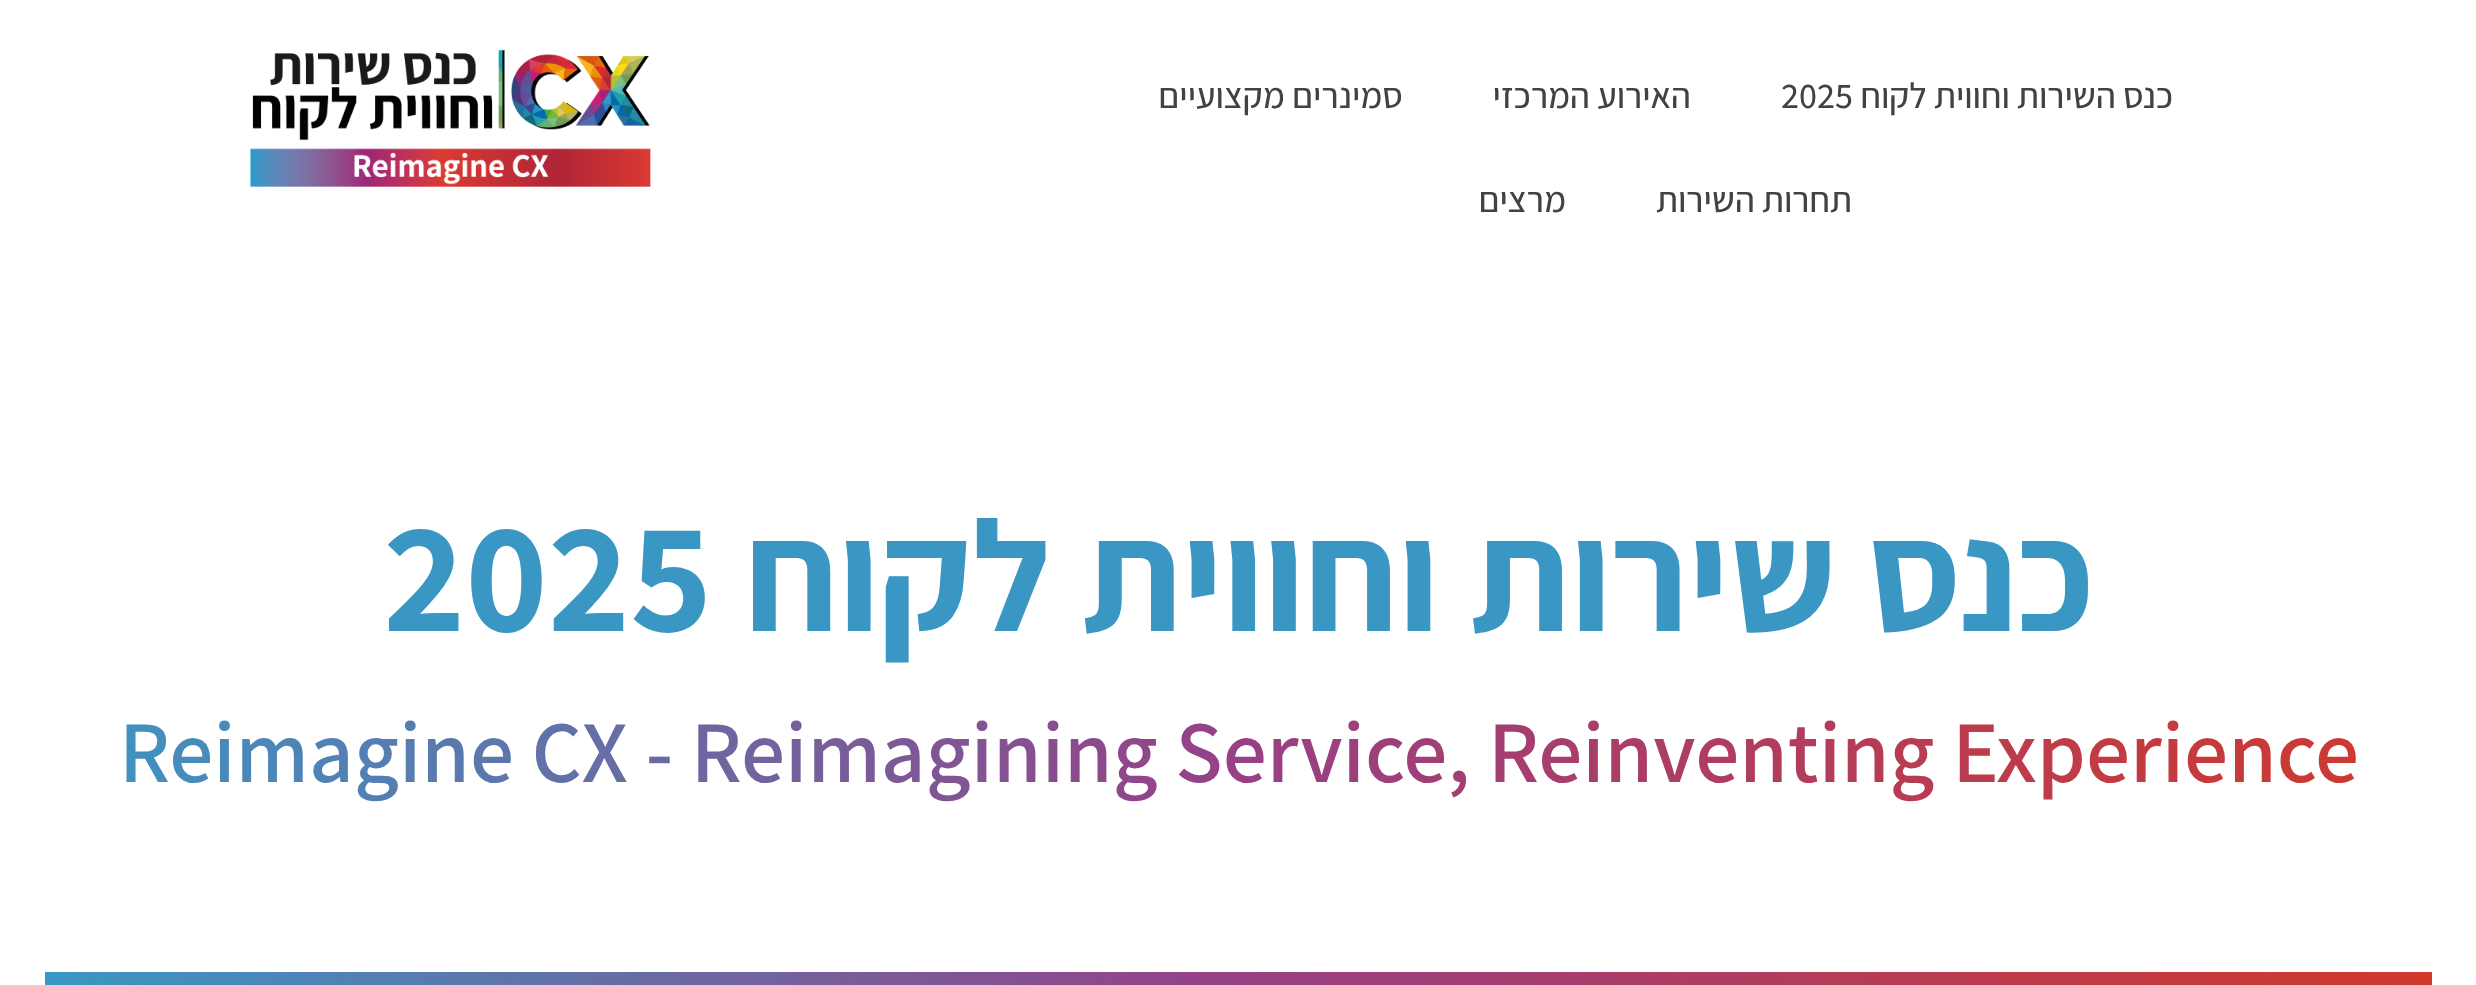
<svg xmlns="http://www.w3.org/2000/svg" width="2476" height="985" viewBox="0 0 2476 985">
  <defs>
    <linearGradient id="g1" gradientUnits="userSpaceOnUse" x1="45" y1="757" x2="2432" y2="757"><stop offset="0" stop-color="#3a97c3"/><stop offset="0.5" stop-color="#974085"/><stop offset="1" stop-color="#d1392c"/></linearGradient>
    <linearGradient id="g2" gradientUnits="userSpaceOnUse" x1="45" y1="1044" x2="2432" y2="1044"><stop offset="0" stop-color="#3a97c3"/><stop offset="0.5" stop-color="#974085"/><stop offset="1" stop-color="#d1392c"/></linearGradient>
  </defs>
  <rect width="100%" height="100%" fill="#ffffff"/>
  <text x="2173" y="108" font-family="Assistant" font-size="36" font-weight="500" direction="rtl" fill="#424242">כנס השירות וחווית לקוח</text>
  <text x="1781" y="108" font-family="Assistant" font-size="36" font-weight="500" fill="#424242">2025</text>
  <text x="1691" y="108" font-family="Assistant" font-size="36" font-weight="500" direction="rtl" fill="#424242">האירוע המרכזי</text>
  <text x="1403" y="108" font-family="Assistant" font-size="36" font-weight="500" direction="rtl" fill="#424242">סמינרים מקצועיים</text>
  <text x="1852" y="212" font-family="Assistant" font-size="36" font-weight="500" direction="rtl" fill="#424242">תחרות השירות</text>
  <text x="1566" y="212" font-family="Assistant" font-size="36" font-weight="500" direction="rtl" fill="#424242">מרצים</text>
  <image x="250" y="49" width="401" height="138" href="img1.png"/>
  <text x="2094" y="631" font-family="Assistant" font-size="157.5" font-weight="bold" direction="rtl" fill="#3a97c3">כנס שירות וחווית לקוח</text>
  <text x="383" y="631" font-family="Assistant" font-size="157.5" font-weight="bold" fill="#3a97c3">2025</text>
  <text x="119" y="782" font-family="Assistant" font-size="87.75" font-weight="600" fill="url(#g1)">Reimagine CX - Reimagining Service, Reinventing Experience</text>
  <rect x="45" y="972" width="2387" height="13" fill="url(#g2)"/>
</svg>
